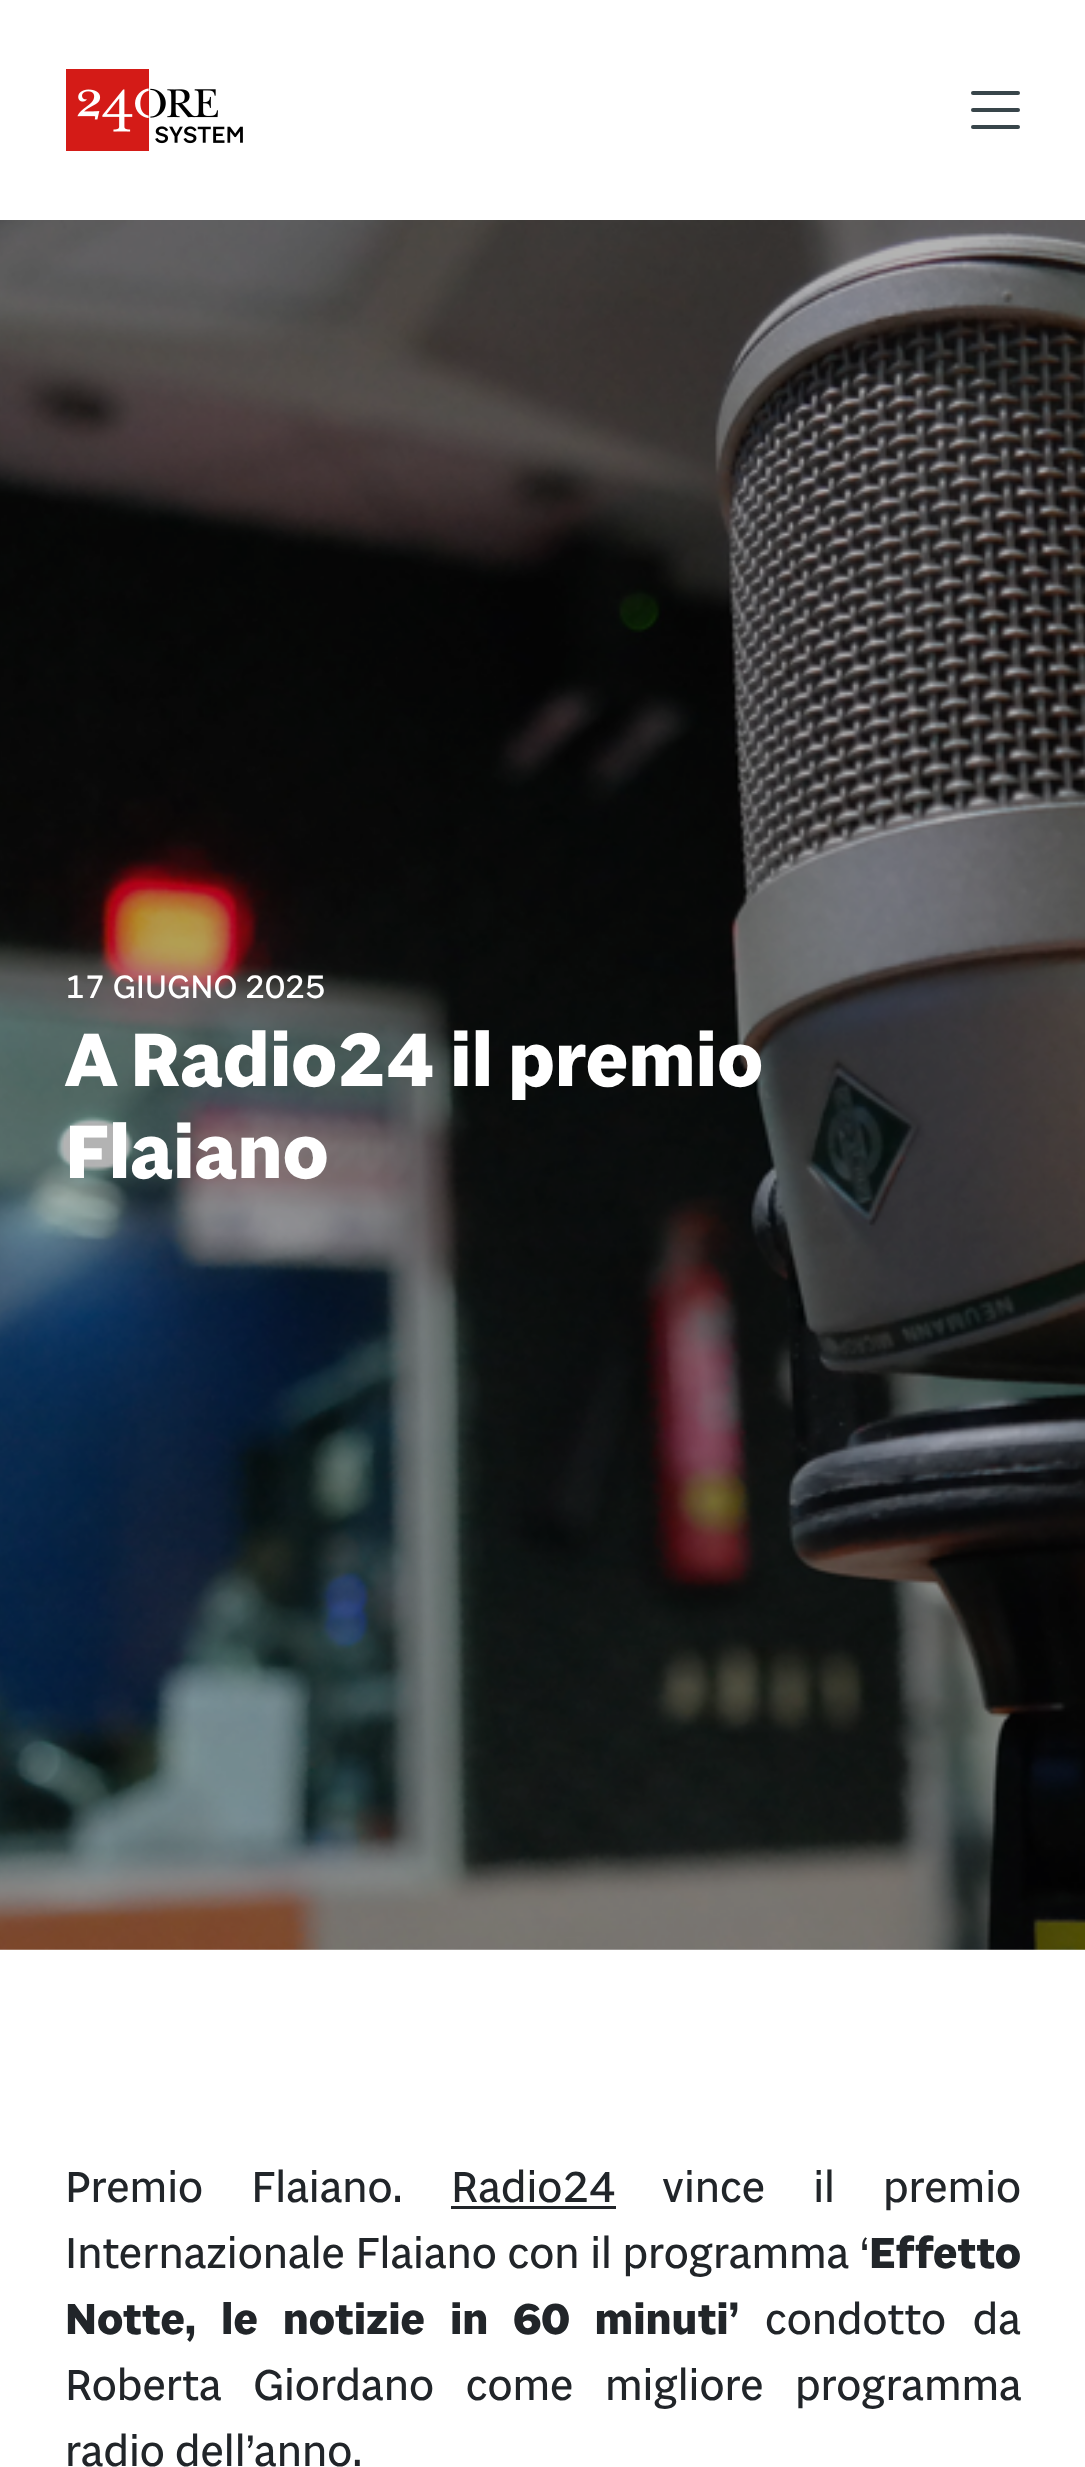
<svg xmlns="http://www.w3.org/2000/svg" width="1085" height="2467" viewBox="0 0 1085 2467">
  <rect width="100%" height="100%" fill="#ffffff"/>
  <image x="66" y="69" width="177" height="82" href="img1.png"/>
  <rect x="971" y="91" width="49" height="4" rx="2" fill="#38454a"/>
  <rect x="971" y="108" width="49" height="4" rx="2" fill="#38454a"/>
  <rect x="971" y="125" width="49" height="4" rx="2" fill="#38454a"/>
  <image x="0" y="220" width="1085" height="1730" href="img2.png"/>
  <text x="65" y="998" font-family="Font" font-size="33" fill="#ffffff">17 GIUGNO 2025</text>
  <text x="65" y="1086" font-family="Font" font-size="76.75" font-weight="bold" fill="#ffffff">A Radio24 il premio</text>
  <text x="65" y="1178" font-family="Font" font-size="76.75" font-weight="bold" fill="#ffffff">Flaiano</text>
  <text x="65" y="2202" word-spacing="38" font-family="Font" font-size="44" fill="#212529">Premio Flaiano.</text>
  <text x="451" y="2202" font-family="Font" font-size="44" fill="#212529">Radio24</text>
  <rect x="451" y="2206" width="165" height="3" fill="#212529"/>
  <text x="662" y="2202" word-spacing="38" font-family="Font" font-size="44" fill="#212529">vince il premio</text>
  <text x="65" y="2268" word-spacing="0.5" font-family="Font" font-size="44" fill="#212529">Internazionale Flaiano con il programma ‘</text>
  <text x="869" y="2268" font-family="Font" font-size="44" font-weight="bold" fill="#212529">Effetto</text>
  <text x="65" y="2334" word-spacing="16.5" font-family="Font" font-size="44" font-weight="bold" fill="#212529">Notte, le notizie in 60 minuti’</text>
  <text x="765" y="2334" word-spacing="16.5" font-family="Font" font-size="44" fill="#212529">condotto da</text>
  <text x="65" y="2400" word-spacing="21.5" font-family="Font" font-size="44" fill="#212529">Roberta Giordano come migliore programma</text>
  <text x="65" y="2466" font-family="Font" font-size="44" fill="#212529">radio dell’anno.</text>
</svg>
